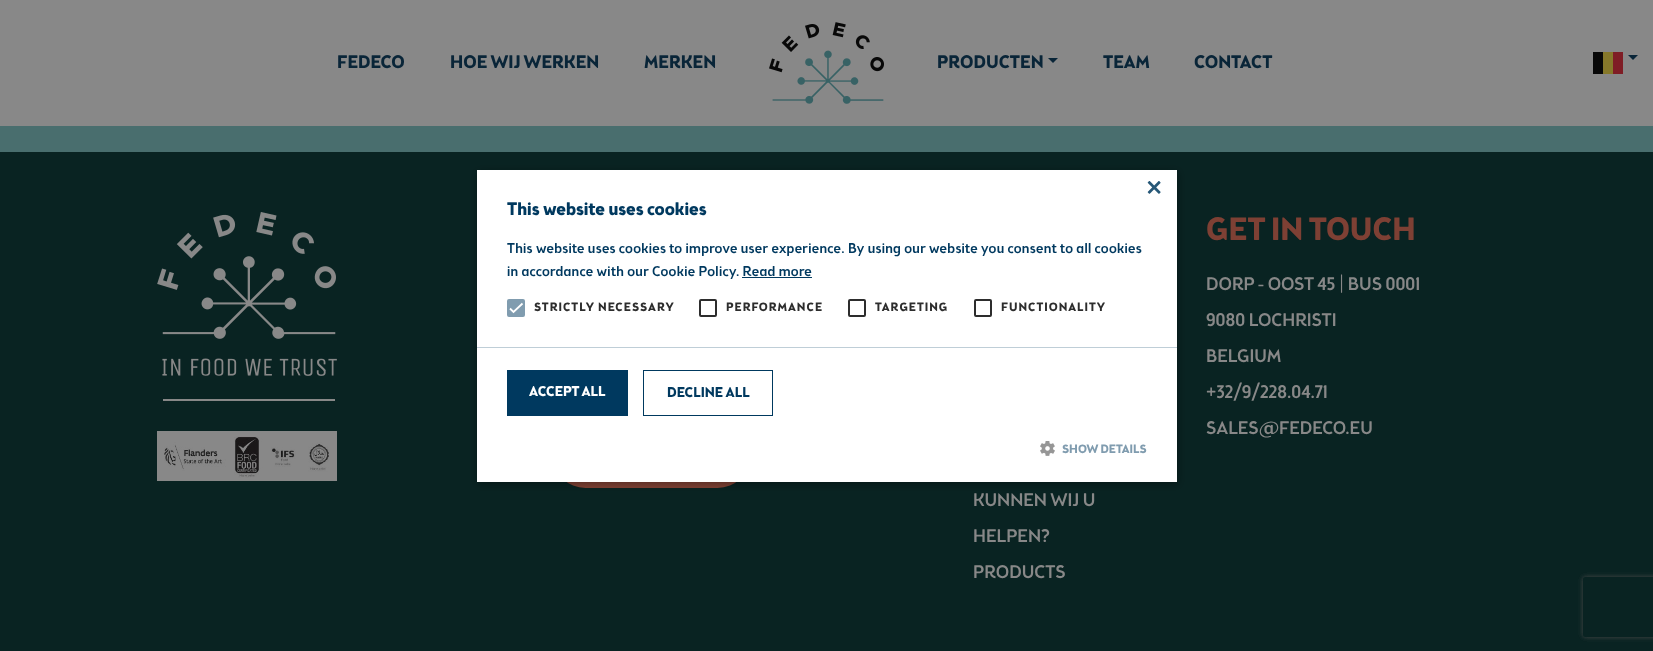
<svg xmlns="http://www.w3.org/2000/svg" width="1653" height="651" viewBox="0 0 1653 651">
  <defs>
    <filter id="blur1" x="-50%" y="-200%" width="200%" height="500%"><feGaussianBlur stdDeviation="4"/></filter>
    <clipPath id="clip1"><path d="M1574 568H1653V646H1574ZM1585 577H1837C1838 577 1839 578 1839 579V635C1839 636 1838 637 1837 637H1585C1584 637 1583 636 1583 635V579C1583 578 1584 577 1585 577Z" clip-rule="evenodd"/></clipPath>
    <filter id="blur2" x="-50%" y="-200%" width="200%" height="500%"><feGaussianBlur stdDeviation="2.5"/></filter>
  </defs>
  <rect width="100%" height="100%" fill="#496e6e"/>
  <rect x="0" y="0" width="1653" height="126" fill="#888888"/>
  <text x="337" y="68" font-family="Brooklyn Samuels" font-size="18" font-weight="bold" fill="#092538">FEDECO</text>
  <text x="450" y="68" font-family="Brooklyn Samuels" font-size="18" font-weight="bold" fill="#092538">HOE WIJ WERKEN</text>
  <text x="644" y="68" font-family="Brooklyn Samuels" font-size="18" font-weight="bold" fill="#092538">MERKEN</text>
  <image x="769" y="22" width="115" height="82" href="img1.png"/>
  <text x="937" y="68" font-family="Brooklyn Samuels" font-size="18" font-weight="bold" fill="#092538">PRODUCTEN</text>
  <path d="M1048 58H1058L1053 63Z" fill="#092538"/>
  <text x="1103" y="68" font-family="Brooklyn Samuels" font-size="18" font-weight="bold" fill="#092538">TEAM</text>
  <text x="1194" y="68" font-family="Brooklyn Samuels" font-size="18" font-weight="bold" fill="#092538">CONTACT</text>
  <image x="1593" y="52" width="30" height="22" href="img2.png"/>
  <path d="M1628 55H1638L1633 60Z" fill="#092538"/>
  <rect x="0" y="152" width="1653" height="499" fill="#092322"/>
  <rect x="553" y="423" width="197" height="65" rx="32.5" fill="#7f4134"/>
  <rect x="478" y="172" width="700" height="312" fill="#000000" fill-opacity="0.35" filter="url(#blur1)"/>
  <rect x="477" y="170" width="700" height="312" fill="#ffffff"/>
  <text x="1147" y="198" font-family="Brooklyn Samuels" font-size="30" font-weight="500" fill="#265777">×</text>
  <text x="507" y="215" font-family="Brooklyn Samuels" font-size="18" font-weight="bold" fill="#00395f">This website uses cookies</text>
  <text x="507" y="253" font-family="Brooklyn Samuels" font-size="14" font-weight="500" letter-spacing="0.3" fill="#00395f">This website uses cookies to improve user experience. By using our website you consent to all cookies</text>
  <text x="507" y="276" font-family="Brooklyn Samuels" font-size="14" font-weight="500" letter-spacing="0.3" fill="#00395f">in accordance with our Cookie Policy. Read more</text>
  <rect x="742" y="277" width="70" height="1" fill="#00395f"/>
  <rect x="508" y="300" width="16" height="16" rx="1" fill="#809caf" stroke="#809caf" stroke-width="2"/>
  <path d="M510 308.5L513.5 312L522.5 303.5" fill="none" stroke="#ffffff" stroke-width="1.8"/>
  <text x="534" y="311" font-family="Brooklyn Samuels" font-size="12" font-weight="bold" letter-spacing="1" fill="#2d2d2d">STRICTLY NECESSARY</text>
  <rect x="700" y="300" width="16" height="16" rx="1" fill="none" stroke="#2d2d2d" stroke-width="2"/>
  <text x="726" y="311" font-family="Brooklyn Samuels" font-size="12" font-weight="bold" letter-spacing="1" fill="#2d2d2d">PERFORMANCE</text>
  <rect x="849" y="300" width="16" height="16" rx="1" fill="none" stroke="#2d2d2d" stroke-width="2"/>
  <text x="875" y="311" font-family="Brooklyn Samuels" font-size="12" font-weight="bold" letter-spacing="1" fill="#2d2d2d">TARGETING</text>
  <rect x="975" y="300" width="16" height="16" rx="1" fill="none" stroke="#2d2d2d" stroke-width="2"/>
  <text x="1001" y="311" font-family="Brooklyn Samuels" font-size="12" font-weight="bold" letter-spacing="1" fill="#2d2d2d">FUNCTIONALITY</text>
  <rect x="477" y="347" width="700" height="1" fill="#bfced7"/>
  <rect x="507" y="370" width="121" height="46" fill="#00395f"/>
  <text x="529" y="396" font-family="Brooklyn Samuels" font-size="14" font-weight="bold" fill="#ffffff">ACCEPT ALL</text>
  <rect x="643.5" y="370.5" width="129" height="45" fill="none" stroke="#00395f"/>
  <text x="667" y="397" font-family="Brooklyn Samuels" font-size="14" font-weight="bold" fill="#00395f">DECLINE ALL</text>
  <image x="1040" y="441" width="15" height="15" href="img3.png"/>
  <text x="1062" y="453" font-family="Brooklyn Samuels" font-size="12" font-weight="bold" fill="#809caf">SHOW DETAILS</text>
  <image x="157" y="212" width="180" height="189" href="img4.png"/>
  <rect x="157" y="431" width="180" height="50" fill="#888888"/>
  <image x="164" y="436" width="165" height="42" href="img5.png"/>
  <text x="1206" y="240" font-family="Brooklyn Samuels" font-size="32" font-weight="bold" fill="#7e4034">GET IN TOUCH</text>
  <text x="1206" y="290" font-family="Brooklyn Samuels" font-size="18" font-weight="500" fill="#888888">DORP - OOST 45 | BUS 0001</text>
  <text x="1206" y="326" font-family="Brooklyn Samuels" font-size="18" font-weight="500" fill="#888888">9080 LOCHRISTI</text>
  <text x="1206" y="362" font-family="Brooklyn Samuels" font-size="18" font-weight="500" fill="#888888">BELGIUM</text>
  <text x="1206" y="398" font-family="Brooklyn Samuels" font-size="18" font-weight="500" fill="#888888">+32/9/228.04.71</text>
  <text x="1206" y="434" font-family="Brooklyn Samuels" font-size="18" font-weight="500" fill="#888888">SALES@FEDECO.EU</text>
  <text x="973" y="506" font-family="Brooklyn Samuels" font-size="18" font-weight="500" fill="#888888">KUNNEN WIJ U</text>
  <text x="973" y="542" font-family="Brooklyn Samuels" font-size="18" font-weight="500" fill="#888888">HELPEN?</text>
  <text x="973" y="578" font-family="Brooklyn Samuels" font-size="18" font-weight="500" fill="#888888">PRODUCTS</text>
  <g clip-path="url(#clip1)">
    <rect x="1583" y="577" width="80" height="60" rx="2" fill="#494949" filter="url(#blur2)"/>
  </g>
</svg>
